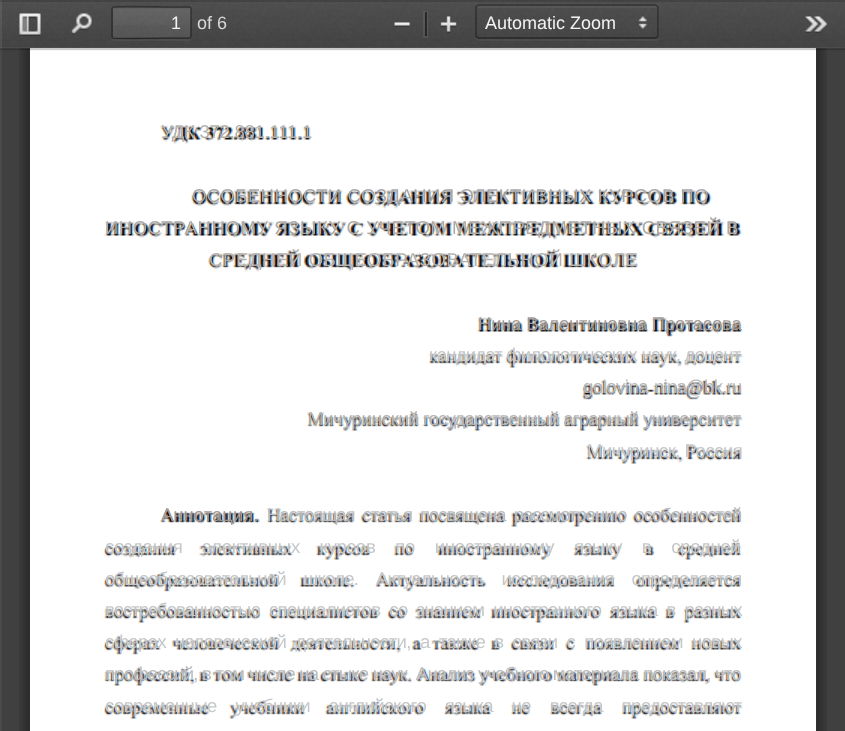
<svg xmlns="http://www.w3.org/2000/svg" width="845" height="731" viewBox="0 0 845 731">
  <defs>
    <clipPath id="clip1"><rect x="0" y="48" width="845" height="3"/></clipPath>
    <filter id="blur1" x="-50%" y="-200%" width="200%" height="500%"><feGaussianBlur stdDeviation="1"/></filter>
    <linearGradient id="g1" gradientUnits="userSpaceOnUse" x1="152" y1="7.5" x2="152" y2="38"><stop offset="0" stop-color="#ffffff" stop-opacity="0.05"/><stop offset="1" stop-color="#ffffff" stop-opacity="0"/></linearGradient>
  </defs>
  <rect width="100%" height="100%" fill="#404040"/>
  <rect x="0" y="48" width="2" height="683" fill="#4a4a4a"/>
  <image x="19" y="48" width="808" height="683" href="img8.png"/>
  <image x="30" y="48" width="786" height="683" href="img9.png"/>
  <g clip-path="url(#clip1)">
    <rect x="0" y="2" width="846" height="48" fill="#000000" fill-opacity="0.1" filter="url(#blur1)"/>
  </g>
  <rect x="0" y="48" width="845" height="2" fill="#000000" fill-opacity="0.15"/>
  <image x="0" y="0" width="845" height="48" href="img1.png"/>
  <rect x="0" y="47" width="845" height="2" fill="#ffffff" fill-opacity="0.05"/>
  <rect x="0" y="0" width="845" height="2" fill="#000000" fill-opacity="0.15"/>
  <rect x="0" y="0" width="2" height="48" fill="#ffffff" fill-opacity="0.08"/>
  <image x="19" y="13" width="22" height="23" href="img2.png"/>
  <image x="71" y="13" width="21" height="22" href="img3.png"/>
  <path d="M111 36C111 44 119 41 126 41H176C184 41 192 44 192 36C192 38 191 39 189 39H114C112 39 111 38 111 36Z" fill="#ffffff" fill-opacity="0.05"/>
  <rect x="113" y="8" width="78" height="30" fill="#ffffff" fill-opacity="0.09"/>
  <rect x="113" y="8" width="78" height="17" fill="url(#g1)"/>
  <path d="M114 9H189C190 9 190 10 190 10V38C191 38 191 37 191 36V10C191 9 190 8 190 8H114C114 8 113 9 113 9Z" fill="#000000" fill-opacity="0.05"/>
  <path d="M112.5 7.5L113 7C114.5 6 170 7 176.5 7H189L190.5 7.5" fill="none" stroke="#000000" stroke-opacity="0.32" stroke-width="1.5"/>
  <path d="M190.5 7.5C191 8 191 8.5 191 9V36C191 36.5 191 37 190.5 37.5" fill="none" stroke="#000000" stroke-opacity="0.38" stroke-width="1.5"/>
  <path d="M190.5 37.5L189 38H176.5C170 38 114.5 39 113 38L112.5 37.5" fill="none" stroke="#000000" stroke-opacity="0.42" stroke-width="1.5"/>
  <path d="M112.5 37.5C112 37 112 36.5 112 36V9C112 8.5 112 8 112.5 7.5" fill="none" stroke="#000000" stroke-opacity="0.38" stroke-width="1.5"/>
  <text x="171" y="29" font-family="Liberation Sans" font-size="18" fill="#f2f2f2">1</text>
  <text x="197" y="29" font-family="Liberation Sans" font-size="18" fill="#d9d9d9">of 6</text>
  <image x="394" y="22" width="16" height="5" href="img4.png"/>
  <rect x="424" y="12" width="3" height="25" fill="none" stroke="#ffffff" stroke-opacity="0.08" stroke-width="2"/>
  <rect x="425" y="12" width="2" height="24" fill="#000000" fill-opacity="0.5"/>
  <image x="440" y="16" width="17" height="17" href="img5.png"/>
  <path d="M476 38C476 40 477 41 479 41H656C658 41 659 40 659 38V9L658 7V31C658 34 659 39 656 39H478C478 39 477 38 476 38Z" fill="#ffffff" fill-opacity="0.05"/>
  <image x="638" y="16" width="9" height="13" href="img6.png"/>
  <path d="M478 8H656C656 8 657 8 657 9C657 8 657 6 656 6H478C477 7 477 8 477 9Z" fill="#ffffff" fill-opacity="0.05"/>
  <path d="M477 6L478.5 5H655.5L657 6" fill="none" stroke="#000000" stroke-opacity="0.32" stroke-width="1.5"/>
  <path d="M657 6C657.5 6.5 658 7 658 7.5V36C658 36.5 657.5 37 657 37.5" fill="none" stroke="#000000" stroke-opacity="0.38" stroke-width="1.5"/>
  <path d="M657 37.5L655.5 38H478.5L477 37.5" fill="none" stroke="#000000" stroke-opacity="0.42" stroke-width="1.5"/>
  <path d="M477 37.5C476.5 37 476 36.5 476 36V7.5C476 7 476.5 6.5 477 6" fill="none" stroke="#000000" stroke-opacity="0.38" stroke-width="1.5"/>
  <text x="485" y="29" font-family="Liberation Sans" font-size="18" fill="#f2f2f2">Automatic Zoom</text>
  <image x="805" y="16" width="23" height="17" href="img7.png"/>
  <text x="161" y="138" font-family="Liberation Sans" font-size="18.55" letter-spacing="-0.25" fill="#b4b0ac">УДК 372.881.111.1</text>
  <text x="192" y="202" font-family="Liberation Sans" font-size="18.55" letter-spacing="0.45" fill="#a5a7aa">ОСОБЕННОСТИ СОЗДАНИЯ ЭЛЕКТИВНЫХ КУРСОВ ПО</text>
  <text x="105" y="234" font-family="Liberation Sans" font-size="18.55" letter-spacing="0.55" fill="#aca9a6">ИНОСТРАННОМУ ЯЗЫКУ С УЧЕТОМ МЕЖПРЕДМЕТНЫХ СВЯЗЕЙ В</text>
  <text x="209" y="266" font-family="Liberation Sans" font-size="18.55" letter-spacing="0.6" fill="#b4b0ac">СРЕДНЕЙ ОБЩЕОБРАЗОВАТЕЛЬНОЙ ШКОЛЕ</text>
  <text x="478" y="330" font-family="Liberation Sans" font-size="18.55" letter-spacing="-0.25" fill="#a19b97">Нина Валентиновна Протасова</text>
  <text x="429" y="361" font-family="Liberation Sans" font-size="18.55" letter-spacing="-0.8" fill="#c5c7c8">кандидат филологических наук, доцент</text>
  <text x="583" y="393" font-family="Liberation Sans" font-size="18.55" letter-spacing="-0.5" fill="#b7b6b8">golovina</text>
  <text x="654" y="393" font-family="Liberation Sans" font-size="18.55" letter-spacing="-0.75" fill="#b7b6b8">nina@bk.ru</text>
  <text x="308" y="425" font-family="Liberation Sans" font-size="18.55" letter-spacing="-0.25" fill="#b4b0ac">Мичуринский</text>
  <text x="423" y="425" font-family="Liberation Sans" font-size="18.55" letter-spacing="-0.8" fill="#b7b6b8">государственный аграрный университет</text>
  <text x="587" y="457" font-family="Liberation Sans" font-size="18.55" letter-spacing="-0.5" fill="#c5c7c8">Мичуринск, Россия</text>
  <text x="161" y="521" font-family="Liberation Sans" font-size="18.55" fill="#a0958f">Аннотация.</text>
  <text x="267" y="521" font-family="Liberation Sans" font-size="18.55" letter-spacing="-1.07" fill="#babcbf" xml:space="preserve">Настоящая  статья  посвящена  рассмотрению  особенностей</text>
  <text x="105" y="553" font-family="Liberation Sans" font-size="18.55" letter-spacing="-0.23" fill="#c5c7c8" xml:space="preserve">создания    элективных    курсов    по    иностранному    языку    в    средней</text>
  <text x="105" y="585" font-family="Liberation Sans" font-size="18.55" letter-spacing="-0.75" fill="#c5c7c8" xml:space="preserve">общеобразовательной    школе.    Актуальность    исследования    определяется</text>
  <text x="105" y="616" font-family="Liberation Sans" font-size="18.55" letter-spacing="-1" fill="#c5c7c8">востребованн</text>
  <text x="212" y="616" font-family="Liberation Sans" font-size="18.55" letter-spacing="-0.7" fill="#c5c7c8" xml:space="preserve">остью  специалистов  со  знанием  иностранного  языка  в  разных</text>
  <text x="105" y="648" font-family="Liberation Sans" font-size="18.55" letter-spacing="-0.6" fill="#c5c7c8" xml:space="preserve">сферах  человеческой  деятельности,  а  также  в  связи  с  появлением  новых</text>
  <text x="105" y="680" font-family="Liberation Sans" font-size="18.55" letter-spacing="-0.8" fill="#babcbf">профессий, в том числе на стыке наук. Анализ учебного материала показал, что</text>
  <text x="105" y="712" font-family="Liberation Sans" font-size="18.55" letter-spacing="-0.5" fill="#c5c7c8" xml:space="preserve">современные    учебники    английского    языка    не    всегда    пре</text>
  <text x="650" y="712" font-family="Liberation Sans" font-size="18.55" letter-spacing="-1" fill="#c5c7c8">доставляют</text>
</svg>
